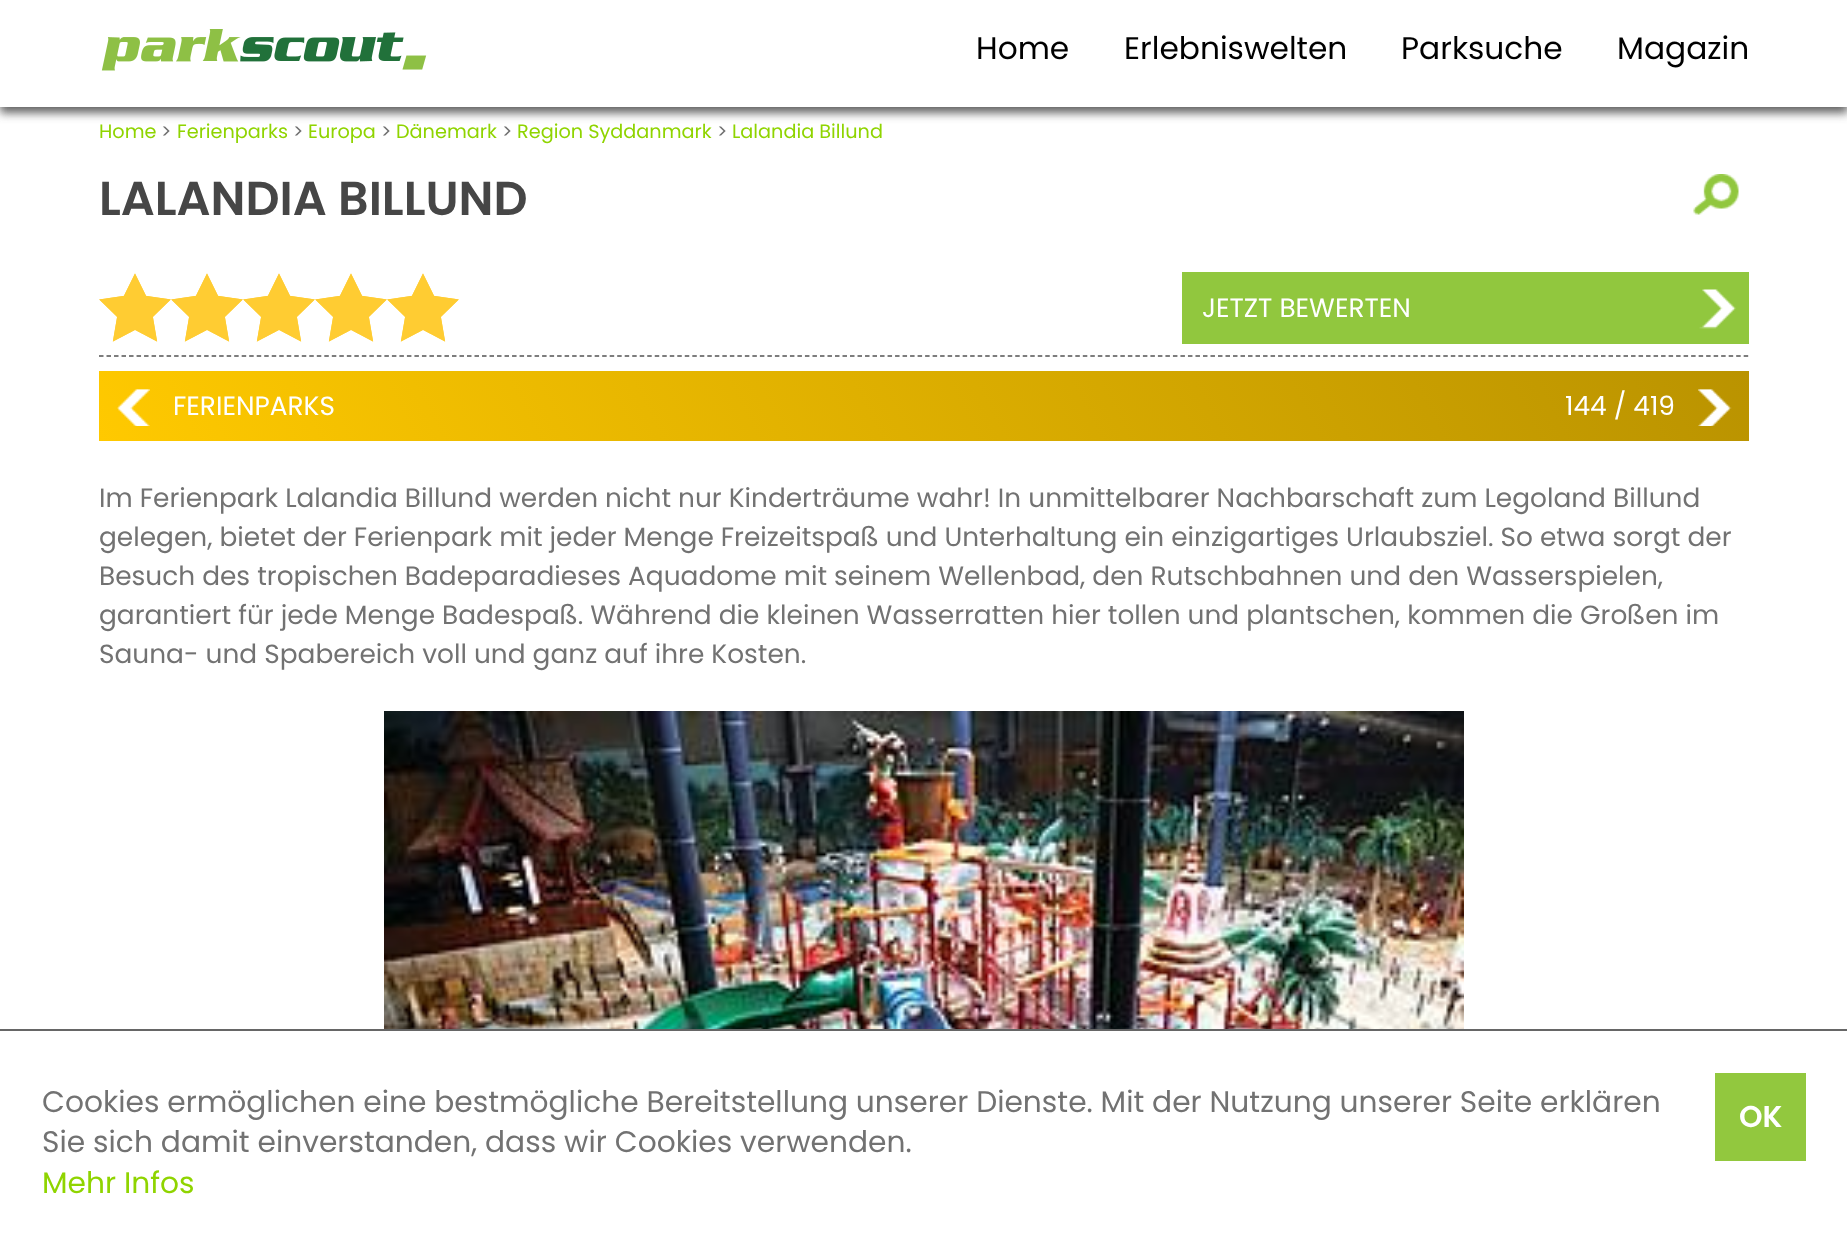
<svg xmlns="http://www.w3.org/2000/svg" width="1847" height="1244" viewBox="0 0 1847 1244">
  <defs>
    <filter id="blur1" x="-50%" y="-200%" width="200%" height="500%"><feGaussianBlur stdDeviation="5"/></filter>
    <linearGradient id="g1" gradientUnits="userSpaceOnUse" x1="255" y1="747" x2="1593" y2="65"><stop offset="0" stop-color="#ffc900"/><stop offset="1" stop-color="#ba9300"/></linearGradient>
  </defs>
  <rect width="100%" height="100%" fill="#ffffff"/>
  <rect x="0" y="6" width="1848" height="107" fill="#646464" filter="url(#blur1)"/>
  <rect x="0" y="0" width="1847" height="107" fill="#ffffff"/>
  <image x="101" y="29" width="326" height="42" href="img1.png"/>
  <text x="976" y="59" font-family="Poppins" font-size="31.25" fill="#000000">Home</text>
  <text x="1124" y="59" font-family="Poppins" font-size="31.25" fill="#000000">Erlebniswelten</text>
  <text x="1401" y="59" font-family="Poppins" font-size="31.25" fill="#000000">Parksuche</text>
  <text x="1617" y="59" font-family="Poppins" font-size="31.25" fill="#000000">Magazin</text>
  <text x="99" y="138" font-family="Poppins" font-size="19.25" fill="#8fd400">Home</text>
  <text x="161" y="138" font-family="Poppins" font-size="19.25" fill="#727272">&gt;</text>
  <text x="177" y="138" font-family="Poppins" font-size="19.25" fill="#8fd400">Ferienparks</text>
  <text x="293" y="138" font-family="Poppins" font-size="19.25" fill="#727272">&gt;</text>
  <text x="308" y="138" font-family="Poppins" font-size="19.25" fill="#8fd400">Europa</text>
  <text x="381" y="138" font-family="Poppins" font-size="19.25" fill="#727272">&gt;</text>
  <text x="396" y="138" font-family="Poppins" font-size="19.25" fill="#8fd400">Dänemark</text>
  <text x="502" y="138" font-family="Poppins" font-size="19.25" fill="#727272">&gt;</text>
  <text x="517" y="138" font-family="Poppins" font-size="19.25" fill="#8fd400">Region Syddanmark</text>
  <text x="717" y="138" font-family="Poppins" font-size="19.25" fill="#727272">&gt;</text>
  <text x="732" y="138" font-family="Poppins" font-size="19.25" fill="#8fd400">Lalandia Billund</text>
  <text x="99" y="215" font-family="Poppins" font-size="47.5" font-weight="600" fill="#464646">LALANDIA BILLUND</text>
  <image x="1693" y="174" width="46" height="41" href="img2.png"/>
  <image x="99" y="273" width="72" height="69" href="img3.png"/>
  <image x="171" y="273" width="72" height="69" href="img3.png"/>
  <image x="243" y="273" width="72" height="69" href="img3.png"/>
  <image x="315" y="273" width="72" height="69" href="img3.png"/>
  <image x="387" y="273" width="72" height="69" href="img3.png"/>
  <rect x="1182" y="272" width="567" height="72" fill="#91c73e"/>
  <image x="1699" y="289" width="37" height="40" href="img4.png"/>
  <text x="1202" y="317" font-family="Poppins" font-size="26.4" fill="#ffffff">JETZT BEWERTEN</text>
  <path d="M99 356H1749" fill="none" stroke="#535353" stroke-width="1.5" stroke-dasharray="4.5 3.01"/>
  <rect x="99" y="371" width="1650" height="70" fill="url(#g1)"/>
  <image x="117" y="389" width="33" height="37" href="img5.png"/>
  <text x="173" y="415" font-family="Poppins" font-size="26.4" fill="#ffffff">FERIENPARKS</text>
  <text x="1565" y="415" font-family="Poppins" font-size="26.4" fill="#ffffff">144 / 419</text>
  <image x="1698" y="389" width="34" height="37" href="img6.png"/>
  <text x="99" y="507" font-family="Poppins" font-size="26.4" fill="#727272">Im Ferienpark Lalandia Billund werden nicht nur Kinderträume wahr! In unmittelbarer Nachbarschaft zum Legoland Billund</text>
  <text x="99" y="546" font-family="Poppins" font-size="26.4" fill="#727272">gelegen, bietet der Ferienpark mit jeder Menge Freizeitspaß und Unterhaltung ein einzigartiges Urlaubsziel. So etwa sorgt der</text>
  <text x="99" y="585" font-family="Poppins" font-size="26.4" fill="#727272">Besuch des tropischen Badeparadieses Aquadome mit seinem Wellenbad, den Rutschbahnen und den Wasserspielen,</text>
  <text x="99" y="624" font-family="Poppins" font-size="26.4" fill="#727272">garantiert für jede Menge Badespaß. Während die kleinen Wasserratten hier tollen und plantschen, kommen die Großen im</text>
  <text x="99" y="663" font-family="Poppins" font-size="26.4" fill="#727272">Sauna- und Spabereich voll und ganz auf ihre Kosten.</text>
  <image x="384" y="711" width="1080" height="318" href="img7.png"/>
  <rect x="0" y="1029" width="1847" height="2" fill="#666666"/>
  <text x="42" y="1112" word-spacing="-0.1" font-family="Poppins" font-size="29.7" fill="#727272">Cookies ermöglichen eine bestmögliche Bereitstellung unserer Dienste. Mit der Nutzung unserer Seite erklären</text>
  <text x="42" y="1152" font-family="Poppins" font-size="29.7" fill="#727272">Sie sich damit einverstanden, dass wir Cookies verwenden.</text>
  <text x="42" y="1193" font-family="Poppins" font-size="29.7" fill="#8fd400">Mehr Infos</text>
  <rect x="1715" y="1073" width="91" height="88" fill="#92c83e"/>
  <text x="1739" y="1127" font-family="Poppins" font-size="30" font-weight="600" fill="#ffffff">OK</text>
</svg>
